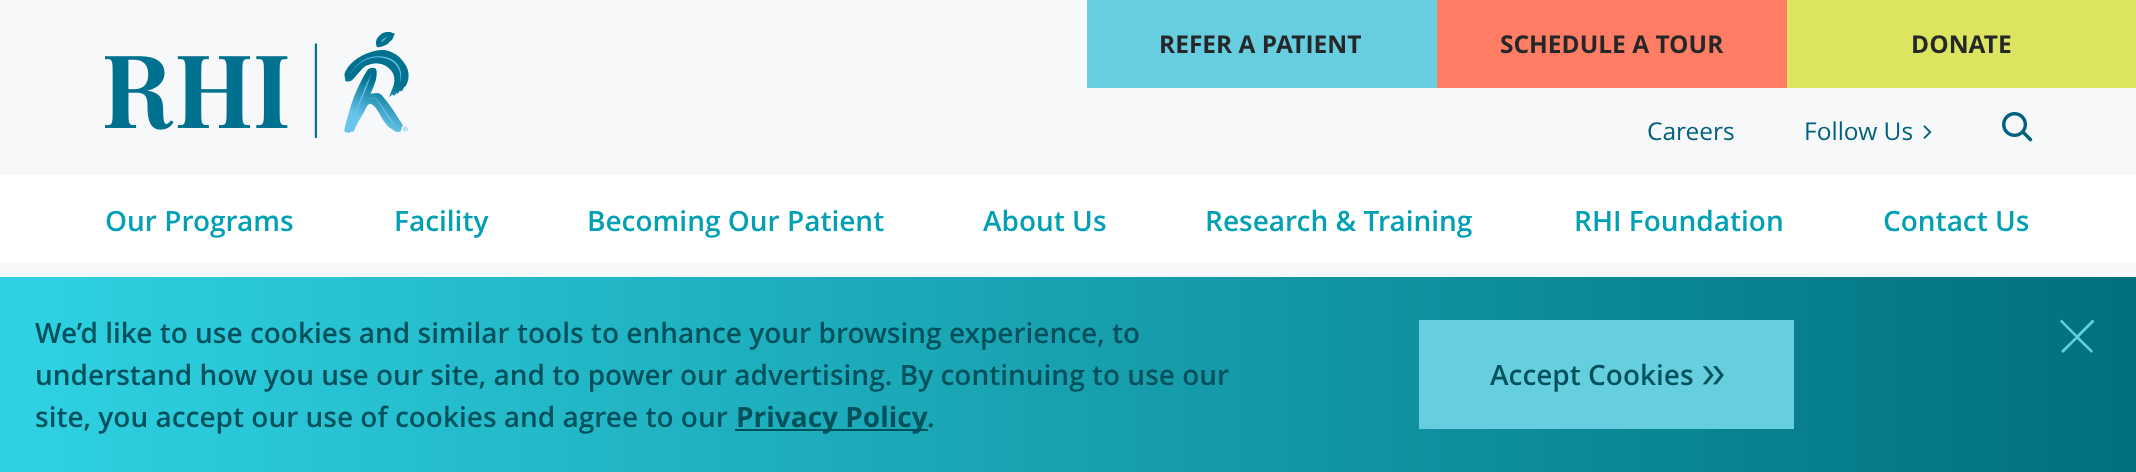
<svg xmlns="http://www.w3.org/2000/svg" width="2136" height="472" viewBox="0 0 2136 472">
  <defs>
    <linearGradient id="g1" gradientUnits="userSpaceOnUse" x1="0" y1="375" x2="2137" y2="374"><stop offset="0" stop-color="#2fd2e3"/><stop offset="1" stop-color="#00707c"/></linearGradient>
  </defs>
  <rect width="100%" height="100%" fill="#f7f8fa"/>
  <image x="105" y="32" width="304" height="106" href="img1.png"/>
  <rect x="1087" y="0" width="350" height="88" fill="#67cee0"/>
  <text x="1159" y="53" font-family="Open Sans" font-size="24.5" font-weight="bold" fill="#262729">REFER A PATIENT</text>
  <rect x="1437" y="0" width="350" height="88" fill="#ff7d65"/>
  <text x="1500" y="53" font-family="Open Sans" font-size="24.5" font-weight="bold" fill="#262729">SCHEDULE A TOUR</text>
  <rect x="1787" y="0" width="349" height="88" fill="#dde460"/>
  <text x="1911" y="53" font-family="Open Sans" font-size="24.5" font-weight="bold" fill="#262729">DONATE</text>
  <text x="1647" y="140" font-family="Open Sans" font-size="24.5" fill="#00607d">Careers</text>
  <text x="1804" y="140" font-family="Open Sans" font-size="24.5" fill="#00607d">Follow Us</text>
  <image x="1923" y="125" width="9" height="14" href="img2.png"/>
  <image x="2002" y="111" width="31" height="31" href="img3.png"/>
  <rect x="0" y="175" width="2136" height="88" fill="#ffffff"/>
  <text x="105" y="231" font-family="Open Sans" font-size="28" font-weight="600" fill="#02a0b4">Our Programs</text>
  <text x="394" y="231" font-family="Open Sans" font-size="28" font-weight="600" fill="#02a0b4">Facility</text>
  <text x="587" y="231" font-family="Open Sans" font-size="28" font-weight="600" fill="#02a0b4">Becoming Our Patient</text>
  <text x="983" y="231" font-family="Open Sans" font-size="28" font-weight="600" fill="#02a0b4">About Us</text>
  <text x="1205" y="231" font-family="Open Sans" font-size="28" font-weight="600" fill="#02a0b4">Research &amp; Training</text>
  <text x="1574" y="231" font-family="Open Sans" font-size="28" font-weight="600" fill="#02a0b4">RHI Foundation</text>
  <text x="1883" y="231" font-family="Open Sans" font-size="28" font-weight="600" fill="#02a0b4">Contact Us</text>
  <rect x="0" y="277" width="2136" height="195" fill="url(#g1)"/>
  <text x="35" y="343" font-family="Open Sans" font-size="28" font-weight="600" fill="#01515c">We’d like to use cookies and similar tools to enhance your browsing experience, to</text>
  <text x="35" y="385" font-family="Open Sans" font-size="28" font-weight="600" fill="#01515c">understand how you use our site, and to power our advertising. By continuing to use our</text>
  <text x="35" y="427" font-family="Open Sans" font-size="28" font-weight="600" fill="#01515c">site, you accept our use of cookies and agree to our</text>
  <rect x="735" y="429" width="193" height="2" fill="#01515c"/>
  <text x="736" y="427" font-family="Open Sans" font-size="28" font-weight="bold" fill="#01515c">Privacy Policy</text>
  <text x="927" y="427" font-family="Open Sans" font-size="28" font-weight="600" fill="#01515c">.</text>
  <rect x="1419" y="320" width="375" height="109" fill="#65cfdf"/>
  <text x="1490" y="385" font-family="Open Sans" font-size="28" font-weight="600" fill="#01515c">Accept Cookies</text>
  <image x="1702" y="366" width="22" height="19" href="img4.png"/>
  <path d="M2061.5 319.5L2060 321.5L2075.5 337L2061 351L2063 353L2077 339L2091.5 353L2093 351L2079 337L2094.5 321.5L2092.5 319.5L2077 335Z" fill="#65cfdf"/>
</svg>
